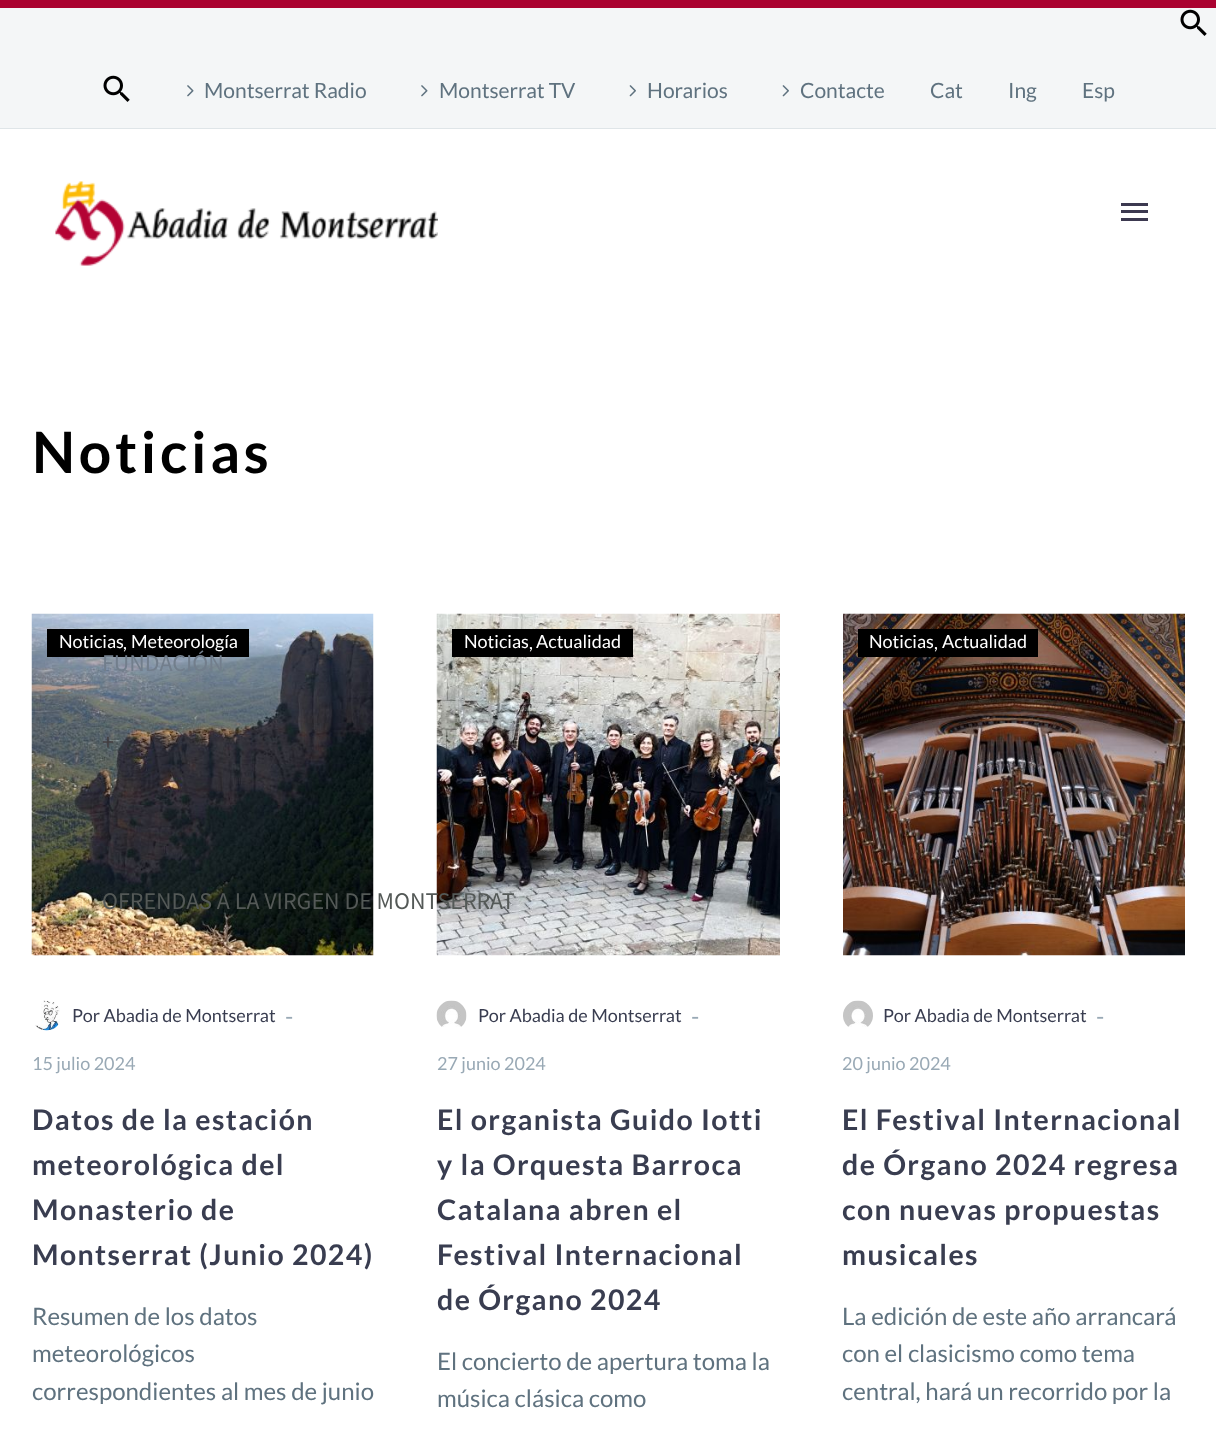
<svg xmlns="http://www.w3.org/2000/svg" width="1216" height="1438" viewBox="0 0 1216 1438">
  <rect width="100%" height="100%" fill="#ffffff"/>
  <rect x="0" y="8" width="1216" height="120" fill="#f4f6f7"/>
  <image x="1180" y="9" width="27" height="27" href="img1.png"/>
  <rect x="0" y="0" width="1216" height="8" fill="#aa0230"/>
  <rect x="0" y="128" width="1216" height="1" fill="#dfe5e8"/>
  <image x="103" y="75" width="27" height="27" href="img1.png"/>
  <image x="187" y="85" width="7" height="12" href="img2.png"/>
  <text x="204" y="98" font-family="Lato" font-size="21" fill="#5f727f">Montserrat Radio</text>
  <image x="421" y="85" width="7" height="12" href="img2.png"/>
  <text x="439" y="98" font-family="Lato" font-size="21" fill="#5f727f">Montserrat TV</text>
  <image x="629" y="85" width="7" height="12" href="img3.png"/>
  <text x="647" y="98" font-family="Lato" font-size="21" fill="#5f727f">Horarios</text>
  <image x="782" y="85" width="7" height="12" href="img3.png"/>
  <text x="800" y="98" font-family="Lato" font-size="21" fill="#5f727f">Contacte</text>
  <text x="930" y="98" font-family="Lato" font-size="21" fill="#5f727f">Cat</text>
  <text x="1008" y="98" font-family="Lato" font-size="21" fill="#5f727f">Ing</text>
  <text x="1082" y="98" font-family="Lato" font-size="21" fill="#5f727f">Esp</text>
  <text x="32" y="473" font-family="Lato" font-size="57" font-weight="bold" letter-spacing="3.75" fill="#000000">Noticias</text>
  <image x="31" y="613" width="343" height="343" href="img4.png"/>
  <rect x="47" y="629" width="202" height="28" fill="#000000"/>
  <text x="59" y="648" font-family="Lato" font-size="18" fill="#ffffff">Noticias</text>
  <text x="123" y="649" font-family="Lato" font-size="18" fill="#ffffff">,</text>
  <text x="131" y="648" font-family="Lato" font-size="18" fill="#ffffff">Meteorología</text>
  <image x="35" y="1000" width="25" height="31" href="img5.png"/>
  <text x="72" y="1022" font-family="Lato" font-size="18" fill="#393d50">Por Abadia de Montserrat</text>
  <text x="285" y="1025" font-family="Lato" font-size="24" fill="#99a9b5">-</text>
  <text x="32" y="1070" font-family="Lato" font-size="18" fill="#99a9b5">15 julio 2024</text>
  <text x="32" y="1130" font-family="Lato" font-size="28.5" font-weight="bold" letter-spacing="1.4" fill="#393d50">Datos de la estación</text>
  <text x="32" y="1175" font-family="Lato" font-size="28.5" font-weight="bold" letter-spacing="1.4" fill="#393d50">meteorológica del</text>
  <text x="32" y="1220" font-family="Lato" font-size="28.5" font-weight="bold" letter-spacing="1.4" fill="#393d50">Monasterio de</text>
  <text x="32" y="1265" font-family="Lato" font-size="28.5" font-weight="bold" letter-spacing="1.4" fill="#393d50">Montserrat (Junio 2024)</text>
  <text x="32" y="1325" font-family="Lato" font-size="24" fill="#5f727f">Resumen de los datos</text>
  <text x="32" y="1362" font-family="Lato" font-size="24" fill="#5f727f">meteorológicos</text>
  <text x="32" y="1400" font-family="Lato" font-size="24" fill="#5f727f">correspondientes al mes de junio</text>
  <image x="436" y="613" width="344" height="343" href="img6.png"/>
  <rect x="452" y="629" width="181" height="28" fill="#000000"/>
  <text x="464" y="648" font-family="Lato" font-size="18" fill="#ffffff">Noticias</text>
  <text x="529" y="649" font-family="Lato" font-size="18" fill="#ffffff">,</text>
  <text x="536" y="648" font-family="Lato" font-size="18" fill="#ffffff">Actualidad</text>
  <image x="436" y="1000" width="31" height="27" href="img7.png"/>
  <text x="478" y="1022" font-family="Lato" font-size="18" fill="#393d50">Por Abadia de Montserrat</text>
  <text x="691" y="1025" font-family="Lato" font-size="24" fill="#99a9b5">-</text>
  <text x="437" y="1070" font-family="Lato" font-size="18" fill="#99a9b5">27 junio 2024</text>
  <text x="437" y="1130" font-family="Lato" font-size="28.5" font-weight="bold" letter-spacing="1.4" fill="#393d50">El organista Guido Iotti</text>
  <text x="437" y="1175" font-family="Lato" font-size="28.5" font-weight="bold" letter-spacing="1.4" fill="#393d50">y la Orquesta Barroca</text>
  <text x="437" y="1220" font-family="Lato" font-size="28.5" font-weight="bold" letter-spacing="1.4" fill="#393d50">Catalana abren el</text>
  <text x="437" y="1265" font-family="Lato" font-size="28.5" font-weight="bold" letter-spacing="1.4" fill="#393d50">Festival Internacional</text>
  <text x="437" y="1310" font-family="Lato" font-size="28.5" font-weight="bold" letter-spacing="1.4" fill="#393d50">de Órgano 2024</text>
  <text x="437" y="1370" font-family="Lato" font-size="24" fill="#5f727f">El concierto de apertura toma la</text>
  <text x="437" y="1407" font-family="Lato" font-size="24" fill="#5f727f">música clásica como</text>
  <image x="843" y="613" width="342" height="343" href="img8.png"/>
  <rect x="858" y="629" width="180" height="28" fill="#000000"/>
  <text x="869" y="648" font-family="Lato" font-size="18" fill="#ffffff">Noticias</text>
  <text x="934" y="649" font-family="Lato" font-size="18" fill="#ffffff">,</text>
  <text x="942" y="648" font-family="Lato" font-size="18" fill="#ffffff">Actualidad</text>
  <image x="843" y="1000" width="30" height="27" href="img9.png"/>
  <text x="883" y="1022" font-family="Lato" font-size="18" fill="#393d50">Por Abadia de Montserrat</text>
  <text x="1096" y="1025" font-family="Lato" font-size="24" fill="#99a9b5">-</text>
  <text x="842" y="1070" font-family="Lato" font-size="18" fill="#99a9b5">20 junio 2024</text>
  <text x="842" y="1130" font-family="Lato" font-size="28.5" font-weight="bold" letter-spacing="1.4" fill="#393d50">El Festival Internacional</text>
  <text x="842" y="1175" font-family="Lato" font-size="28.5" font-weight="bold" letter-spacing="1.4" fill="#393d50">de Órgano 2024 regresa</text>
  <text x="842" y="1220" font-family="Lato" font-size="28.5" font-weight="bold" letter-spacing="1.4" fill="#393d50">con nuevas propuestas</text>
  <text x="842" y="1265" font-family="Lato" font-size="28.5" font-weight="bold" letter-spacing="1.4" fill="#393d50">musicales</text>
  <text x="842" y="1325" font-family="Lato" font-size="24" fill="#5f727f">La edición de este año arrancará</text>
  <text x="842" y="1362" font-family="Lato" font-size="24" fill="#5f727f">con el clasicismo como tema</text>
  <text x="842" y="1400" font-family="Lato" font-size="24" fill="#5f727f">central, hará un recorrido por la</text>
  <image x="55" y="181" width="383" height="85" href="img10.png"/>
  <rect x="1121" y="203" width="27" height="3" fill="#3c3950"/>
  <rect x="1121" y="210" width="27" height="3" fill="#3c3950"/>
  <rect x="1121" y="218" width="27" height="3" fill="#3c3950"/>
  <text x="102" y="671" font-family="Source Sans Pro" font-size="24" fill="#727e8c">FUNDACIÓN</text>
  <text x="102" y="750" font-family="Source Sans Pro" font-size="24" fill="#423e40">+</text>
  <text x="102" y="909" font-family="Source Sans Pro" font-size="24" fill="#545957">OFRENDAS A LA VIRGEN DE MONTSERRAT</text>
</svg>
